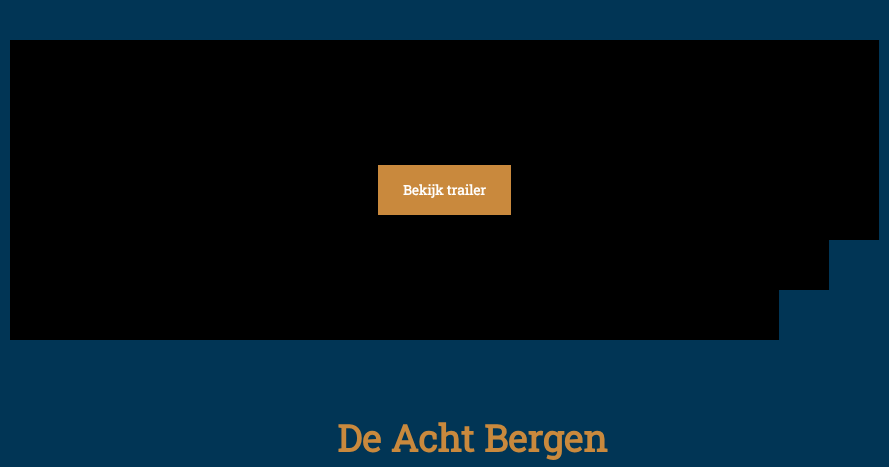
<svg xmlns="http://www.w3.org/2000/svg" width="889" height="467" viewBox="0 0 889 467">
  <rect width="100%" height="100%" fill="#013555"/>
  <rect x="10" y="40" width="869" height="300" fill="#000000"/>
  <rect x="378" y="165" width="133" height="50" fill="#c9893d"/>
  <text x="403" y="195" font-family="Roboto Slab" font-size="13.5" font-weight="bold" fill="#ffffff">Bekijk trailer</text>
  <rect x="829" y="240" width="50" height="100" fill="#013555"/>
  <rect x="779" y="290" width="50" height="50" fill="#013555"/>
  <text x="337" y="452" font-family="Roboto Slab" font-size="37.5" font-weight="bold" fill="#c9893d">De Acht Bergen</text>
</svg>
